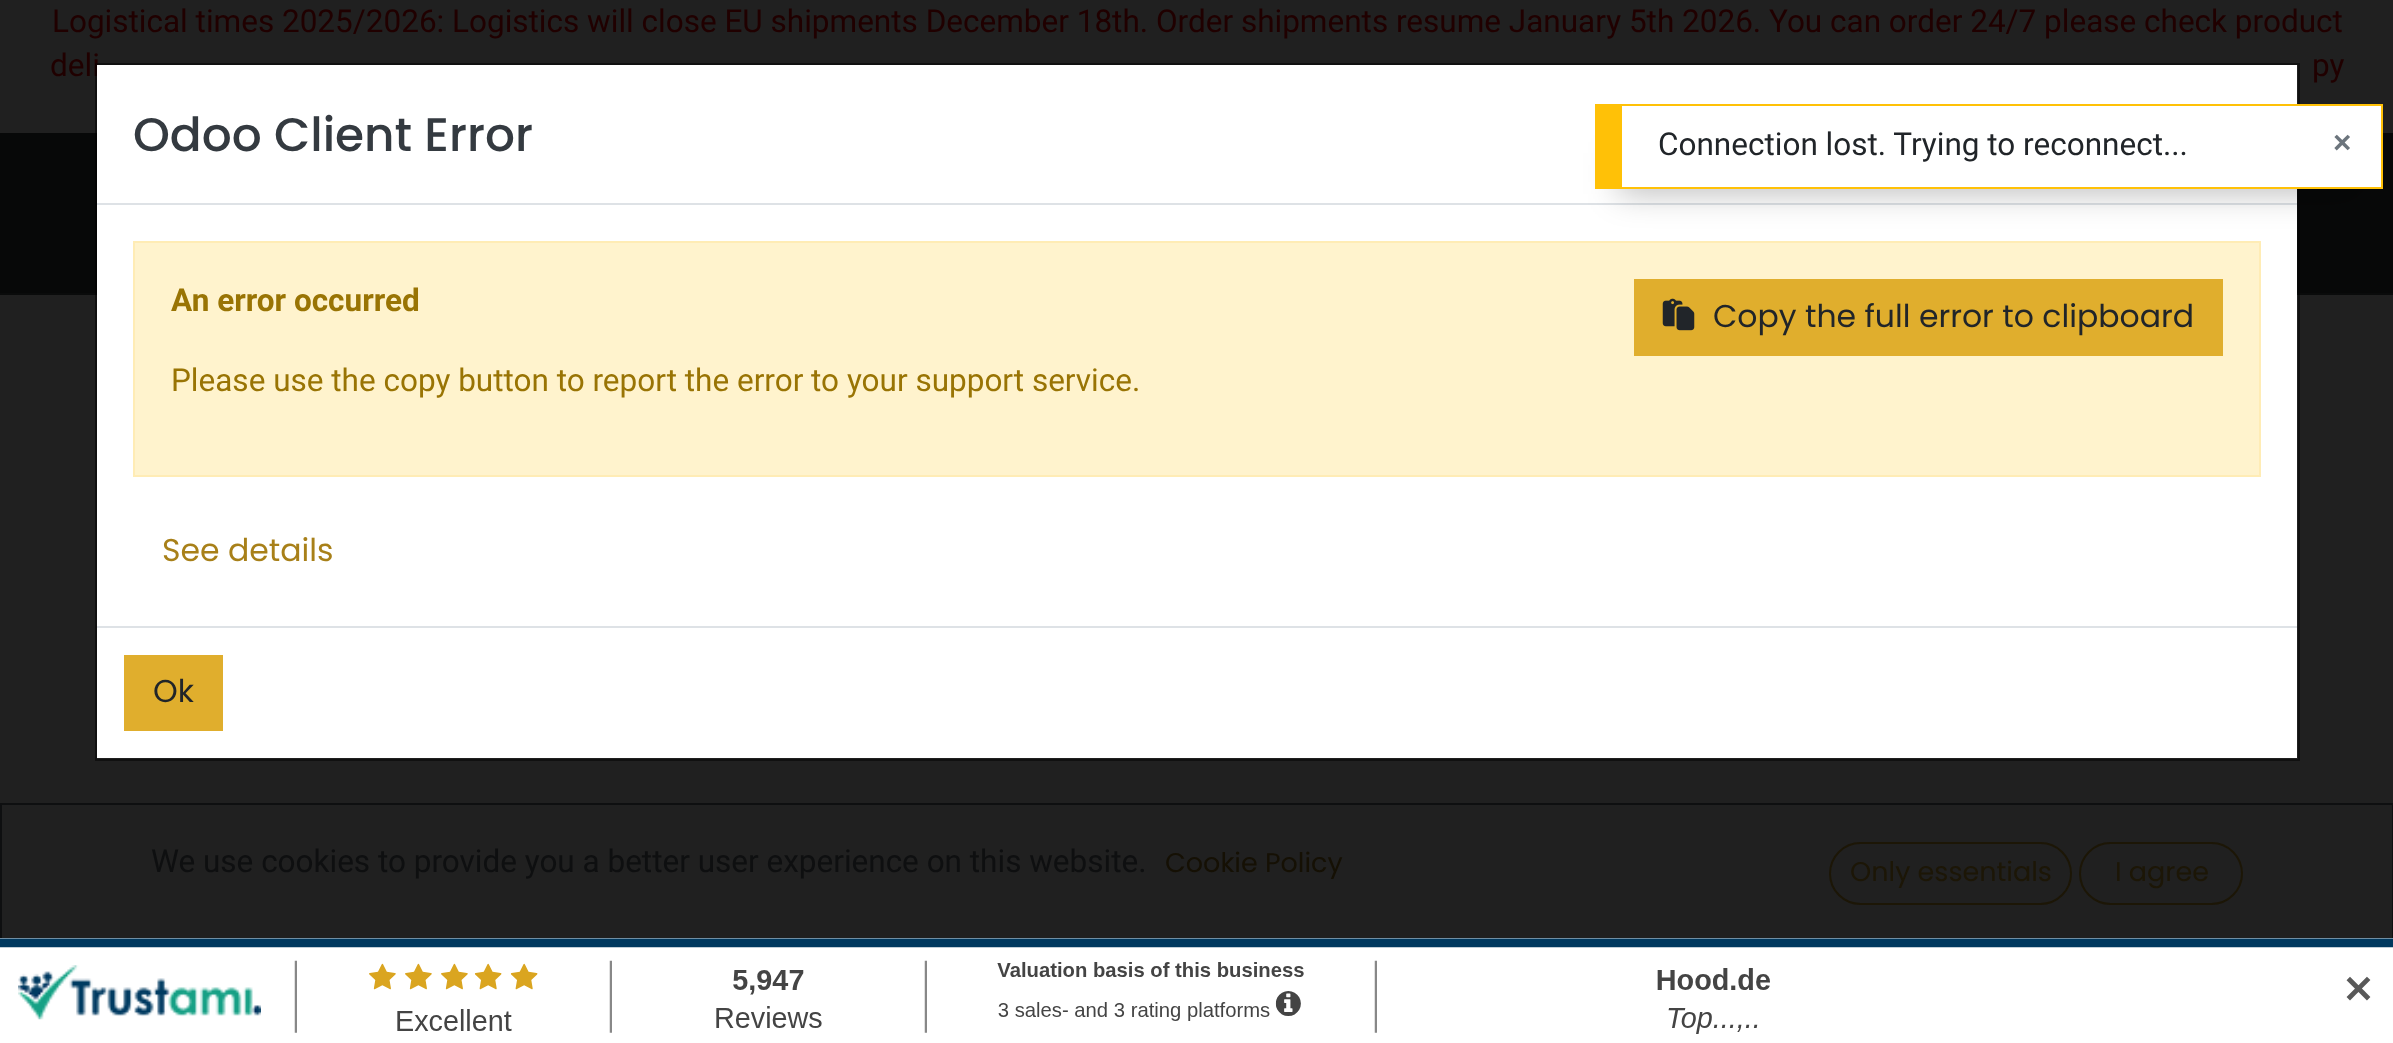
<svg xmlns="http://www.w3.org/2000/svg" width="2393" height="1043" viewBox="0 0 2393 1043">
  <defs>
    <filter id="blur1" x="-50%" y="-200%" width="200%" height="500%"><feGaussianBlur stdDeviation="16"/></filter>
  </defs>
  <rect width="100%" height="100%" fill="#202020"/>
  <text x="52" y="32" font-family="Roboto" font-size="31.5" fill="#200000">Logistical times 2025/2026: Logistics will close EU shipments December 18th. Order shipments resume January 5th 2026. You can order 24/7 please check product</text>
  <text x="50" y="76" font-family="Roboto" font-size="31.5" fill="#200000">deli</text>
  <text x="2312" y="76" font-family="Roboto" font-size="31.5" fill="#200000">py</text>
  <rect x="0" y="133" width="2393" height="160" fill="#070808"/>
  <rect x="0" y="293" width="2393" height="2" fill="#0a0b0b"/>
  <rect x="1" y="804" width="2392" height="138" fill="none" stroke="#0e0f10" stroke-width="2"/>
  <text x="151" y="872" font-family="Roboto" font-size="31.5" fill="#0e0f10">We use cookies to provide you a better user experience on this website.</text>
  <text x="1165" y="872" font-family="Poppins" font-size="27" fill="#151004">Cookie Policy</text>
  <rect x="1830" y="843" width="241" height="61" rx="30.5" fill="none" stroke="#1c1606" stroke-width="2"/>
  <text x="1850" y="881" font-family="Poppins" font-size="27" fill="#1c1606">Only essentials</text>
  <rect x="2080" y="843" width="162" height="61" rx="30.5" fill="none" stroke="#1c1606" stroke-width="2"/>
  <text x="2115" y="881" font-family="Poppins" font-size="27" fill="#1c1606">I agree</text>
  <rect x="96" y="64" width="2203" height="696" fill="none" stroke="#000000" stroke-opacity="0.2" stroke-width="2"/>
  <rect x="96" y="64" width="2203" height="696" fill="none" stroke="#000000" stroke-opacity="0.2" stroke-width="2"/>
  <rect x="97" y="65" width="2200" height="693" fill="#ffffff"/>
  <rect x="96" y="64" width="2203" height="696" fill="none" stroke="#000000" stroke-opacity="0.2" stroke-width="2"/>
  <rect x="97" y="203" width="2200" height="2" fill="#dee2e6"/>
  <text x="133" y="151" font-family="Poppins" font-size="47" font-weight="500" fill="#343a40">Odoo Client Error</text>
  <rect x="134" y="242" width="2126" height="234" fill="#fff3cd" stroke="#ffecb5" stroke-width="2"/>
  <text x="171" y="311" font-family="Roboto" font-size="31.5" font-weight="bold" fill="#997404">An error occurred</text>
  <rect x="1634" y="279" width="589" height="77" fill="#e0ae2d"/>
  <image x="1662" y="298" width="33" height="33" href="img1.png"/>
  <text x="1713" y="327" font-family="Poppins" font-size="31.5" fill="#212529">Copy the full error to clipboard</text>
  <text x="171" y="391" font-family="Roboto" font-size="31.5" fill="#997404">Please use the copy button to report the error to your support service.</text>
  <text x="162" y="561" font-family="Poppins" font-size="31.5" fill="#a88019">See details</text>
  <rect x="97" y="626" width="2200" height="2" fill="#dee2e6"/>
  <rect x="124" y="655" width="99" height="76" fill="#e0ae2d"/>
  <text x="153" y="702" font-family="Poppins" font-size="31.5" fill="#212529">Ok</text>
  <rect x="1618" y="153" width="742" height="41" fill="#000000" fill-opacity="0.25" filter="url(#blur1)"/>
  <rect x="1622" y="106" width="759" height="81" fill="#ffffff"/>
  <rect x="1622" y="104" width="761" height="2" fill="#ffc107"/>
  <rect x="2381" y="104" width="2" height="85" fill="#ffc107"/>
  <rect x="1622" y="187" width="761" height="2" fill="#ffc107"/>
  <rect x="1595" y="104" width="27" height="85" fill="#ffc107"/>
  <text x="1658" y="155" font-family="Roboto" font-size="31.5" fill="#212529">Connection lost. Trying to reconnect...</text>
  <text x="2333" y="153" font-family="Liberation Sans" font-size="31.5" font-weight="bold" fill="#6c757d">×</text>
  <image x="0" y="938" width="2393" height="105" href="img2.png"/>
  <text x="2342" y="1003" font-family="DejaVu Sans" font-size="38" font-weight="bold" fill="#595959">✕</text>
</svg>
